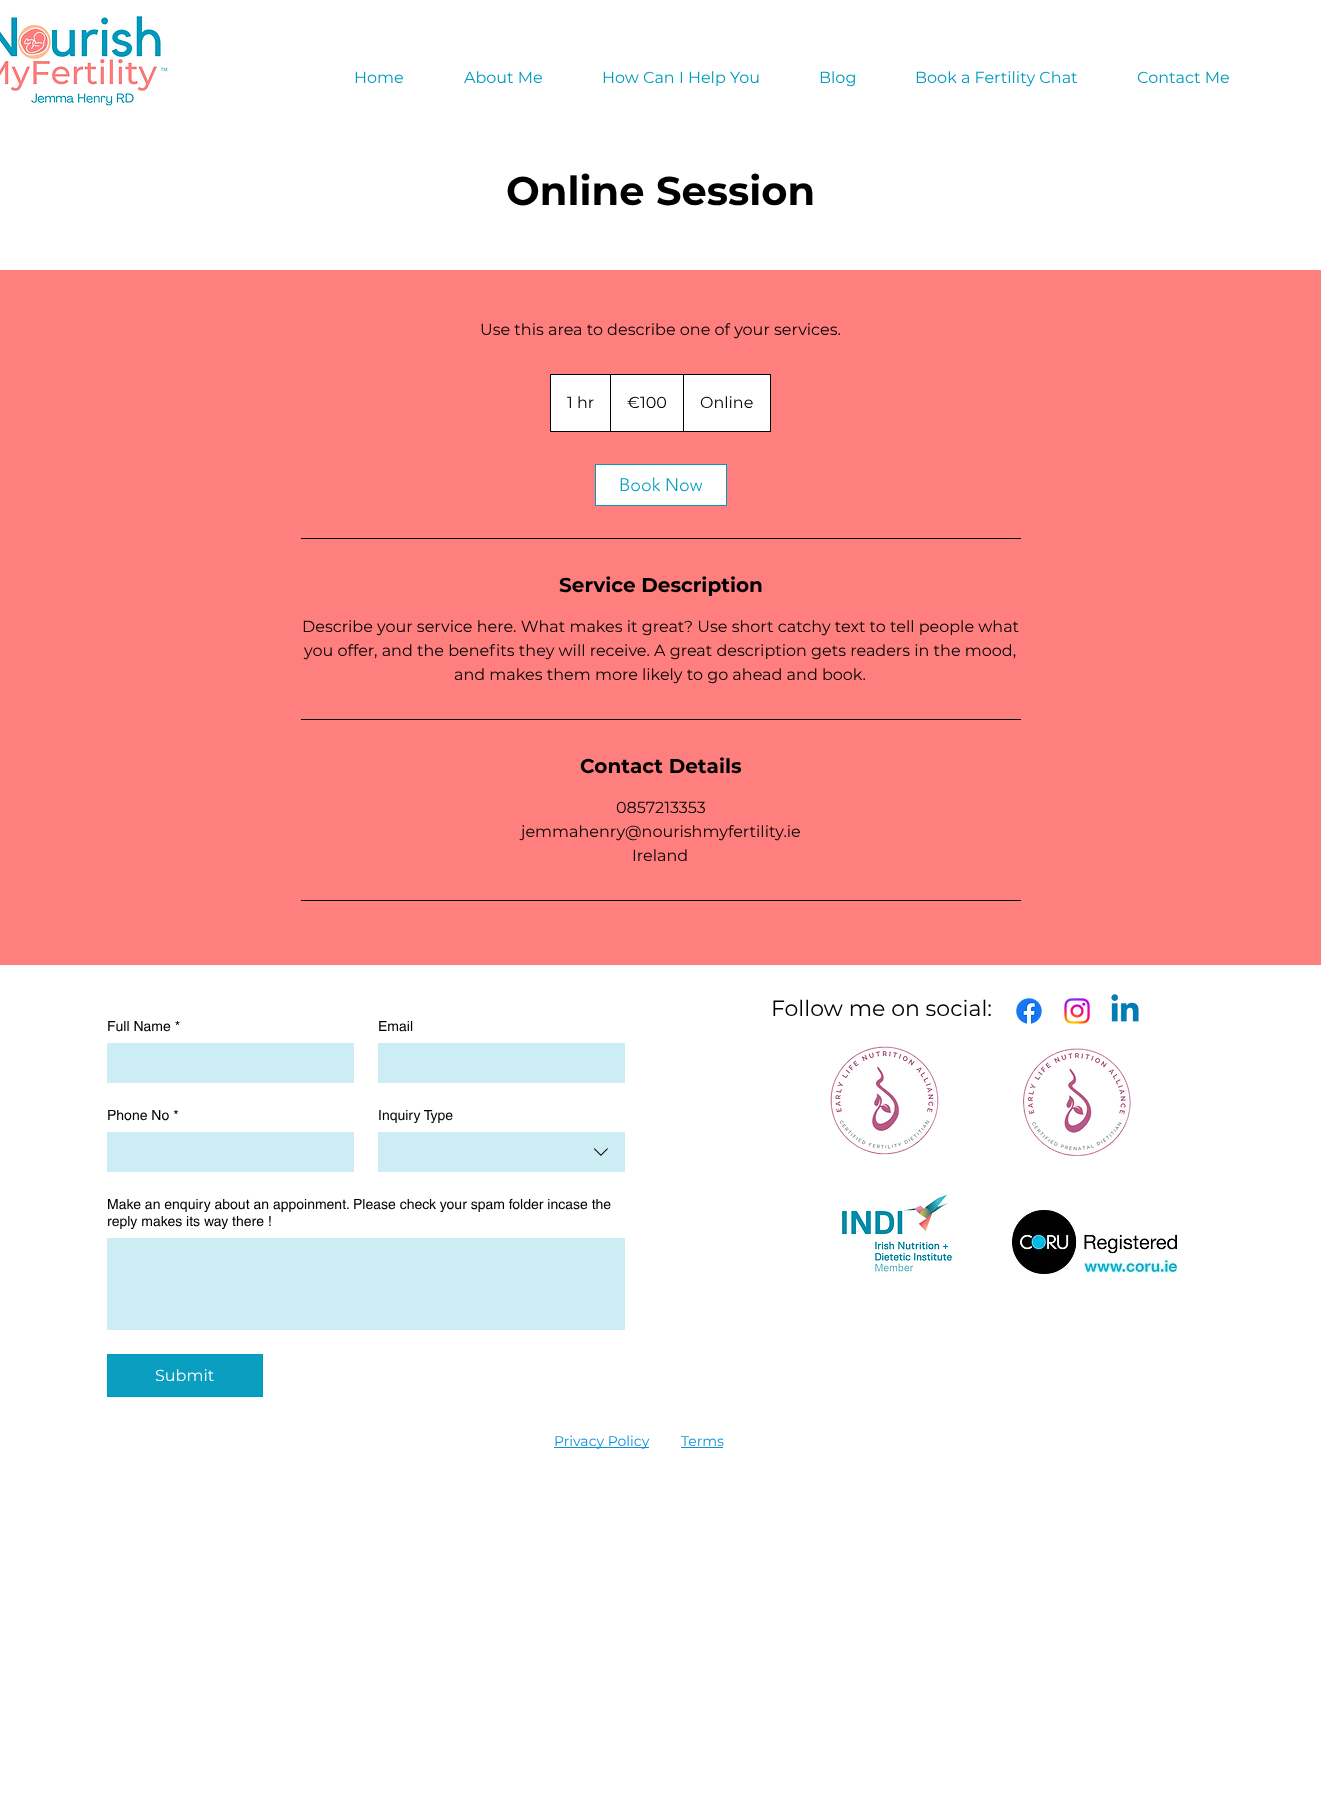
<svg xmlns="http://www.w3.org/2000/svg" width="1321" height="1810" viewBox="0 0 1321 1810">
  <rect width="100%" height="100%" fill="#ffffff"/>
  <image x="0" y="15" width="168" height="91" href="img1.png"/>
  <text x="354" y="83" font-family="Montserrat" font-size="16" fill="#009bbd">Home</text>
  <text x="464" y="83" font-family="Montserrat" font-size="16" fill="#009bbd">About Me</text>
  <text x="602" y="83" font-family="Montserrat" font-size="16" fill="#009bbd">How Can I Help You</text>
  <text x="819" y="83" font-family="Montserrat" font-size="16" fill="#009bbd">Blog</text>
  <text x="915" y="83" font-family="Montserrat" font-size="16" fill="#009bbd">Book a Fertility Chat</text>
  <text x="1137" y="83" font-family="Montserrat" font-size="16" fill="#009bbd">Contact Me</text>
  <text x="506" y="205" font-family="Montserrat" font-size="40" font-weight="bold" fill="#000000">Online Session</text>
  <rect x="0" y="270" width="1321" height="695" fill="#ff7f7f"/>
  <text x="480" y="335" font-family="Montserrat" font-size="16" fill="#000000">Use this area to describe one of your services.</text>
  <rect x="550.5" y="374.5" width="220" height="57" fill="#ffffff" stroke="#000000"/>
  <text x="567" y="408" font-family="Montserrat" font-size="16" fill="#000000">1 hr</text>
  <rect x="610" y="375" width="1" height="56" fill="#000000"/>
  <text x="627" y="408" font-family="Montserrat" font-size="16" fill="#000000">€100</text>
  <rect x="683" y="375" width="1" height="56" fill="#000000"/>
  <text x="700" y="408" font-family="Montserrat" font-size="16" fill="#000000">Online</text>
  <rect x="595.5" y="464.5" width="131" height="41" fill="#ffffff" stroke="#009bbd"/>
  <text x="619" y="491" font-family="'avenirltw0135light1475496'" font-size="18" font-weight="300" fill="#009bbd">Book Now</text>
  <rect x="301" y="538" width="720" height="1" fill="#000000"/>
  <text x="559" y="592" font-family="Montserrat" font-size="20" font-weight="bold" fill="#000000">Service Description</text>
  <text x="302" y="632" font-family="Montserrat" font-size="16" fill="#000000">Describe your service here. What makes it great? Use short catchy text to tell people what</text>
  <text x="304" y="656" font-family="Montserrat" font-size="16" fill="#000000">you offer, and the benefits they will receive. A great description gets readers in the mood,</text>
  <text x="454" y="680" font-family="Montserrat" font-size="16" fill="#000000">and makes them more likely to go ahead and book.</text>
  <rect x="301" y="719" width="720" height="1" fill="#000000"/>
  <text x="580" y="773" font-family="Montserrat" font-size="20" font-weight="bold" fill="#000000">Contact Details</text>
  <text x="616" y="813" font-family="Montserrat" font-size="16" fill="#000000">0857213353</text>
  <text x="521" y="837" font-family="Montserrat" font-size="16" fill="#000000">jemmahenry@nourishmyfertility.ie</text>
  <text x="632" y="861" font-family="Montserrat" font-size="16" fill="#000000">Ireland</text>
  <rect x="301" y="900" width="720" height="1" fill="#000000"/>
  <text x="771" y="1016" font-family="Montserrat" font-size="22" fill="#000000">Follow me on social:</text>
  <image x="1016" y="998" width="26" height="26" href="img2.png"/>
  <image x="1064" y="998" width="26" height="26" href="img3.png"/>
  <image x="1111" y="994" width="28" height="28" href="img4.png"/>
  <image x="830" y="1046" width="109" height="109" href="img5.png"/>
  <image x="1023" y="1048" width="108" height="108" href="img6.png"/>
  <image x="842" y="1194" width="110" height="78" href="img7.png"/>
  <image x="1012" y="1210" width="165" height="64" href="img8.png"/>
  <text x="107" y="1031" font-family="helvetica" font-size="14" fill="#000000">Full Name *</text>
  <text x="378" y="1031" font-family="helvetica" font-size="14" fill="#000000">Email</text>
  <rect x="107" y="1043" width="247" height="40" fill="#cdedf4"/>
  <rect x="378" y="1043" width="247" height="40" fill="#cdedf4"/>
  <text x="107" y="1120" font-family="helvetica" font-size="14" fill="#000000">Phone No *</text>
  <text x="378" y="1120" font-family="helvetica" font-size="14" fill="#000000">Inquiry Type</text>
  <rect x="107" y="1132" width="247" height="40" fill="#cdedf4"/>
  <rect x="378" y="1132" width="247" height="40" fill="#cdedf4"/>
  <image x="593" y="1148" width="15" height="8" href="img9.png"/>
  <text x="107" y="1209" font-family="helvetica" font-size="14" fill="#000000">Make an enquiry about an appoinment. Please check your spam folder incase the</text>
  <text x="107" y="1226" font-family="helvetica" font-size="14" fill="#000000">reply makes its way there !</text>
  <rect x="107" y="1238" width="518" height="92" fill="#cdedf4"/>
  <rect x="107.5" y="1354.5" width="155" height="42" fill="#0a9ec0" stroke="#009bbd"/>
  <text x="155" y="1381" font-family="Montserrat" font-size="16" fill="#ffffff">Submit</text>
  <rect x="554" y="1447" width="95" height="1" fill="#0d91d9"/>
  <text x="554" y="1446" font-family="Montserrat" font-size="14" fill="#0d91d9">Privacy Policy</text>
  <text x="681" y="1446" font-family="Montserrat" font-size="14" fill="#0d91d9">Terms</text>
  <rect x="681" y="1447" width="42" height="1" fill="#0d91d9"/>
</svg>
